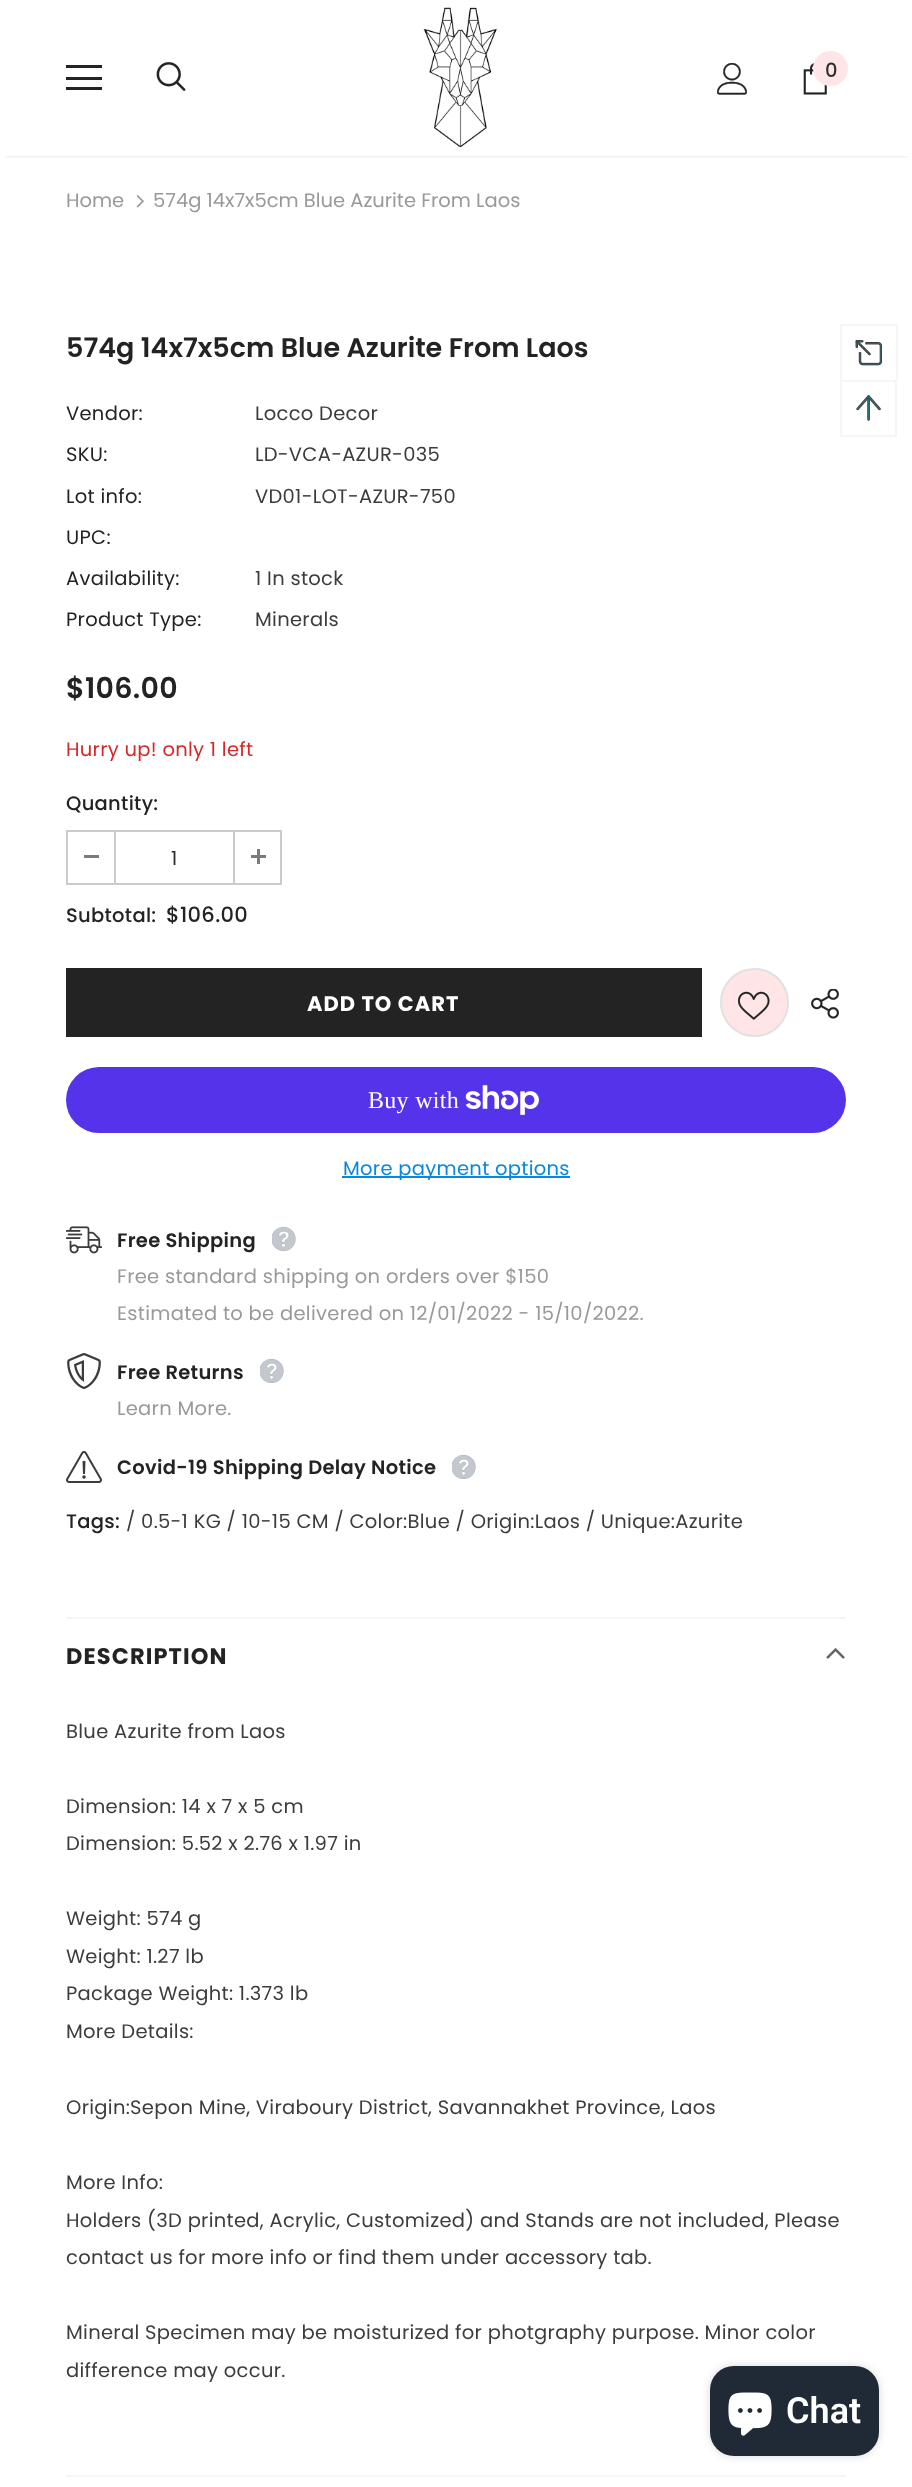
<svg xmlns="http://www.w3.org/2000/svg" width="912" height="2487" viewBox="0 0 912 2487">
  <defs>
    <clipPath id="clip1"><rect x="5" y="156" width="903" height="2"/></clipPath>
    <filter id="blur1" x="-50%" y="-200%" width="200%" height="500%"><feGaussianBlur stdDeviation="2"/></filter>
    <filter id="blur2" x="-50%" y="-200%" width="200%" height="500%"><feGaussianBlur stdDeviation="4"/></filter>
  </defs>
  <rect width="100%" height="100%" fill="#ffffff"/>
  <g clip-path="url(#clip1)">
    <rect x="5" y="9" width="903" height="147" fill="#000000" fill-opacity="0.12" filter="url(#blur1)"/>
  </g>
  <rect x="66" y="65" width="36" height="3" fill="#232323"/>
  <rect x="66" y="77" width="36" height="3" fill="#232323"/>
  <rect x="66" y="87" width="36" height="3" fill="#232323"/>
  <image x="156" y="62" width="30" height="29" href="img1.png"/>
  <image x="423" y="7" width="74" height="141" href="img2.png"/>
  <image x="717" y="63" width="31" height="32" href="img3.png"/>
  <image x="803" y="63" width="24" height="32" href="img4.png"/>
  <circle cx="830.5" cy="68.5" r="17.5" fill="#ffe5e5"/>
  <text x="825" y="77" font-family="Poppins" font-size="19.5" font-weight="500" fill="#2d2d2d">0</text>
  <text x="66" y="207" font-family="Poppins" font-size="19.5" fill="#999999">Home</text>
  <image x="136" y="195" width="8" height="13" href="img5.png"/>
  <text x="153" y="207" font-family="Poppins" font-size="19.5" fill="#999999">574g 14x7x5cm Blue Azurite From Laos</text>
  <text x="66" y="357" font-family="Poppins" font-size="27" font-weight="600" fill="#232323">574g 14x7x5cm Blue Azurite From Laos</text>
  <text x="66" y="420" font-family="Poppins" font-size="19.5" letter-spacing="0.3" fill="#232323">Vendor:</text>
  <text x="255" y="420" font-family="Poppins" font-size="19.5" letter-spacing="0.3" fill="#3c3c3c">Locco Decor</text>
  <text x="66" y="461" font-family="Poppins" font-size="19.5" letter-spacing="0.3" fill="#232323">SKU:</text>
  <text x="255" y="461" font-family="Poppins" font-size="19.5" letter-spacing="0.3" fill="#3c3c3c">LD-VCA-AZUR-035</text>
  <text x="66" y="503" font-family="Poppins" font-size="19.5" letter-spacing="0.3" fill="#232323">Lot info:</text>
  <text x="255" y="503" font-family="Poppins" font-size="19.5" letter-spacing="0.3" fill="#3c3c3c">VD01-LOT-AZUR-750</text>
  <text x="66" y="544" font-family="Poppins" font-size="19.5" letter-spacing="0.3" fill="#232323">UPC:</text>
  <text x="66" y="585" font-family="Poppins" font-size="19.5" letter-spacing="0.3" fill="#232323">Availability:</text>
  <text x="255" y="585" font-family="Poppins" font-size="19.5" letter-spacing="0.3" fill="#3c3c3c">1 In stock</text>
  <text x="66" y="626" font-family="Poppins" font-size="19.5" letter-spacing="0.3" fill="#232323">Product Type:</text>
  <text x="255" y="626" font-family="Poppins" font-size="19.5" letter-spacing="0.3" fill="#3c3c3c">Minerals</text>
  <text x="66" y="698" font-family="Poppins" font-size="28.5" font-weight="600" letter-spacing="0.3" fill="#232323">$106.00</text>
  <text x="66" y="756" font-family="Poppins" font-size="19.5" letter-spacing="0.3" fill="#d62828">Hurry up! only 1 left</text>
  <text x="66" y="810" font-family="Poppins" font-size="19.5" font-weight="500" letter-spacing="0.3" fill="#232323">Quantity:</text>
  <rect x="67" y="831" width="214" height="53" fill="none" stroke="#cbcbcb" stroke-width="2"/>
  <rect x="114" y="831" width="2" height="53" fill="#cbcbcb"/>
  <rect x="84" y="855" width="15" height="3" fill="#7b7b7b"/>
  <text x="171" y="865" font-family="Poppins" font-size="19.5" fill="#2d2d2d">1</text>
  <rect x="233" y="831" width="2" height="53" fill="#cbcbcb"/>
  <rect x="251" y="855" width="15" height="3" fill="#7b7b7b"/>
  <rect x="257" y="849" width="3" height="15" fill="#7b7b7b"/>
  <text x="66" y="922" font-family="Poppins" font-size="19.5" font-weight="500" letter-spacing="0.3" fill="#232323">Subtotal:</text>
  <text x="166" y="922" font-family="Poppins" font-size="21" font-weight="500" letter-spacing="0.3" fill="#232323">$106.00</text>
  <rect x="66" y="968" width="636" height="69" fill="#232323"/>
  <text x="307" y="1011" font-family="Poppins" font-size="21" font-weight="bold" letter-spacing="1" fill="#ffffff">ADD TO CART</text>
  <circle cx="754.5" cy="1002.5" r="33.5" fill="#ffe5e5" stroke="#e1e1e1" stroke-width="2"/>
  <image x="738" y="991" width="32" height="29" href="img6.png"/>
  <image x="811" y="989" width="28" height="30" href="img7.png"/>
  <rect x="66" y="1067" width="780" height="66" rx="33" fill="#5433eb"/>
  <text x="368" y="1108" font-family="Liberation Serif" font-size="24" letter-spacing="0.3" fill="#ffffff">Buy with</text>
  <image x="465" y="1085" width="74" height="30" href="img8.png"/>
  <rect x="342" y="1176" width="228" height="2" fill="#0688e2"/>
  <text x="343" y="1175" font-family="Poppins" font-size="19.5" letter-spacing="0.3" fill="#0688e2">More payment options</text>
  <image x="66" y="1226" width="36" height="28" href="img9.png"/>
  <text x="117" y="1247" font-family="Poppins" font-size="19.5" font-weight="600" letter-spacing="0.3" fill="#232323">Free Shipping</text>
  <image x="272" y="1227" width="24" height="24" href="img10.png"/>
  <text x="117" y="1283" font-family="Poppins" font-size="19.5" letter-spacing="0.3" fill="#999999">Free standard shipping on orders over $150</text>
  <text x="117" y="1320" font-family="Poppins" font-size="19.5" letter-spacing="0.3" fill="#999999">Estimated to be delivered on 12/01/2022 - 15/10/2022.</text>
  <image x="67" y="1353" width="34" height="36" href="img11.png"/>
  <text x="117" y="1379" font-family="Poppins" font-size="19.5" font-weight="600" letter-spacing="0.3" fill="#232323">Free Returns</text>
  <image x="260" y="1359" width="24" height="24" href="img10.png"/>
  <text x="117" y="1415" font-family="Poppins" font-size="19.5" letter-spacing="0.3" fill="#999999">Learn More.</text>
  <image x="66" y="1451" width="36" height="32" href="img12.png"/>
  <text x="117" y="1474" font-family="Poppins" font-size="19.5" font-weight="600" letter-spacing="0.3" fill="#232323">Covid-19 Shipping Delay Notice</text>
  <image x="452" y="1455" width="24" height="24" href="img10.png"/>
  <text x="66" y="1528" font-family="Poppins" font-size="19.5" font-weight="500" letter-spacing="0.3" fill="#232323">Tags:</text>
  <text x="126" y="1528" font-family="Poppins" font-size="19.5" letter-spacing="0.3" fill="#3c3c3c">/ 0.5-1 KG / 10-15 CM / Color:Blue / Origin:Laos / Unique:Azurite</text>
  <rect x="66" y="1617" width="780" height="2" fill="#f6f6f6"/>
  <text x="66" y="1664" font-family="Poppins" font-size="22.5" font-weight="bold" letter-spacing="1.1" fill="#232323">DESCRIPTION</text>
  <image x="826" y="1648" width="19" height="11" href="img13.png"/>
  <text x="66" y="1738" font-family="Poppins" font-size="19.5" letter-spacing="0.3" fill="#3c3c3c">Blue Azurite from Laos</text>
  <text x="66" y="1813" font-family="Poppins" font-size="19.5" letter-spacing="0.3" fill="#3c3c3c">Dimension: 14 x 7 x 5 cm</text>
  <text x="66" y="1850" font-family="Poppins" font-size="19.5" letter-spacing="0.3" fill="#3c3c3c">Dimension: 5.52 x 2.76 x 1.97 in</text>
  <text x="66" y="1925" font-family="Poppins" font-size="19.5" letter-spacing="0.3" fill="#3c3c3c">Weight: 574 g</text>
  <text x="66" y="1963" font-family="Poppins" font-size="19.5" letter-spacing="0.3" fill="#3c3c3c">Weight: 1.27 lb</text>
  <text x="66" y="2000" font-family="Poppins" font-size="19.5" letter-spacing="0.3" fill="#3c3c3c">Package Weight: 1.373 lb</text>
  <text x="66" y="2038" font-family="Poppins" font-size="19.5" letter-spacing="0.3" fill="#3c3c3c">More Details:</text>
  <text x="66" y="2114" font-family="Poppins" font-size="19.5" letter-spacing="0.3" fill="#3c3c3c">Origin:Sepon Mine, Viraboury District, Savannakhet Province, Laos</text>
  <text x="66" y="2189" font-family="Poppins" font-size="19.5" letter-spacing="0.3" fill="#3c3c3c">More Info:</text>
  <text x="66" y="2227" font-family="Poppins" font-size="19.5" letter-spacing="0.3" fill="#3c3c3c">Holders (3D printed, Acrylic, Customized) and Stands are not included, Please</text>
  <text x="66" y="2264" font-family="Poppins" font-size="19.5" letter-spacing="0.3" fill="#3c3c3c">contact us for more info or find them under accessory tab.</text>
  <text x="66" y="2339" font-family="Poppins" font-size="19.5" letter-spacing="0.3" fill="#3c3c3c">Mineral Specimen may be moisturized for photgraphy purpose. Minor color</text>
  <text x="66" y="2377" font-family="Poppins" font-size="19.5" letter-spacing="0.3" fill="#3c3c3c">difference may occur.</text>
  <rect x="66" y="2475" width="780" height="2" fill="#f6f6f6"/>
  <rect x="840" y="324" width="57" height="2" fill="#f5f5f6"/>
  <rect x="896" y="324" width="2" height="56" fill="#f5f5f6"/>
  <rect x="840" y="324" width="2" height="56" fill="#f5f5f6"/>
  <image x="855" y="340" width="27" height="26" href="img14.png"/>
  <rect x="841" y="381" width="55" height="55" fill="none" stroke="#f5f5f6" stroke-width="2"/>
  <image x="856" y="395" width="25" height="26" href="img15.png"/>
  <rect x="710" y="2366" width="169" height="90" rx="24" fill="#000000" fill-opacity="0.15" filter="url(#blur2)"/>
  <rect x="710" y="2366" width="169" height="90" rx="24" fill="#202a36"/>
  <image x="728" y="2392" width="44" height="44" href="img16.png"/>
  <text x="786" y="2423" font-family="Roboto" font-size="36" font-weight="600" fill="#ffffff">Chat</text>
</svg>
